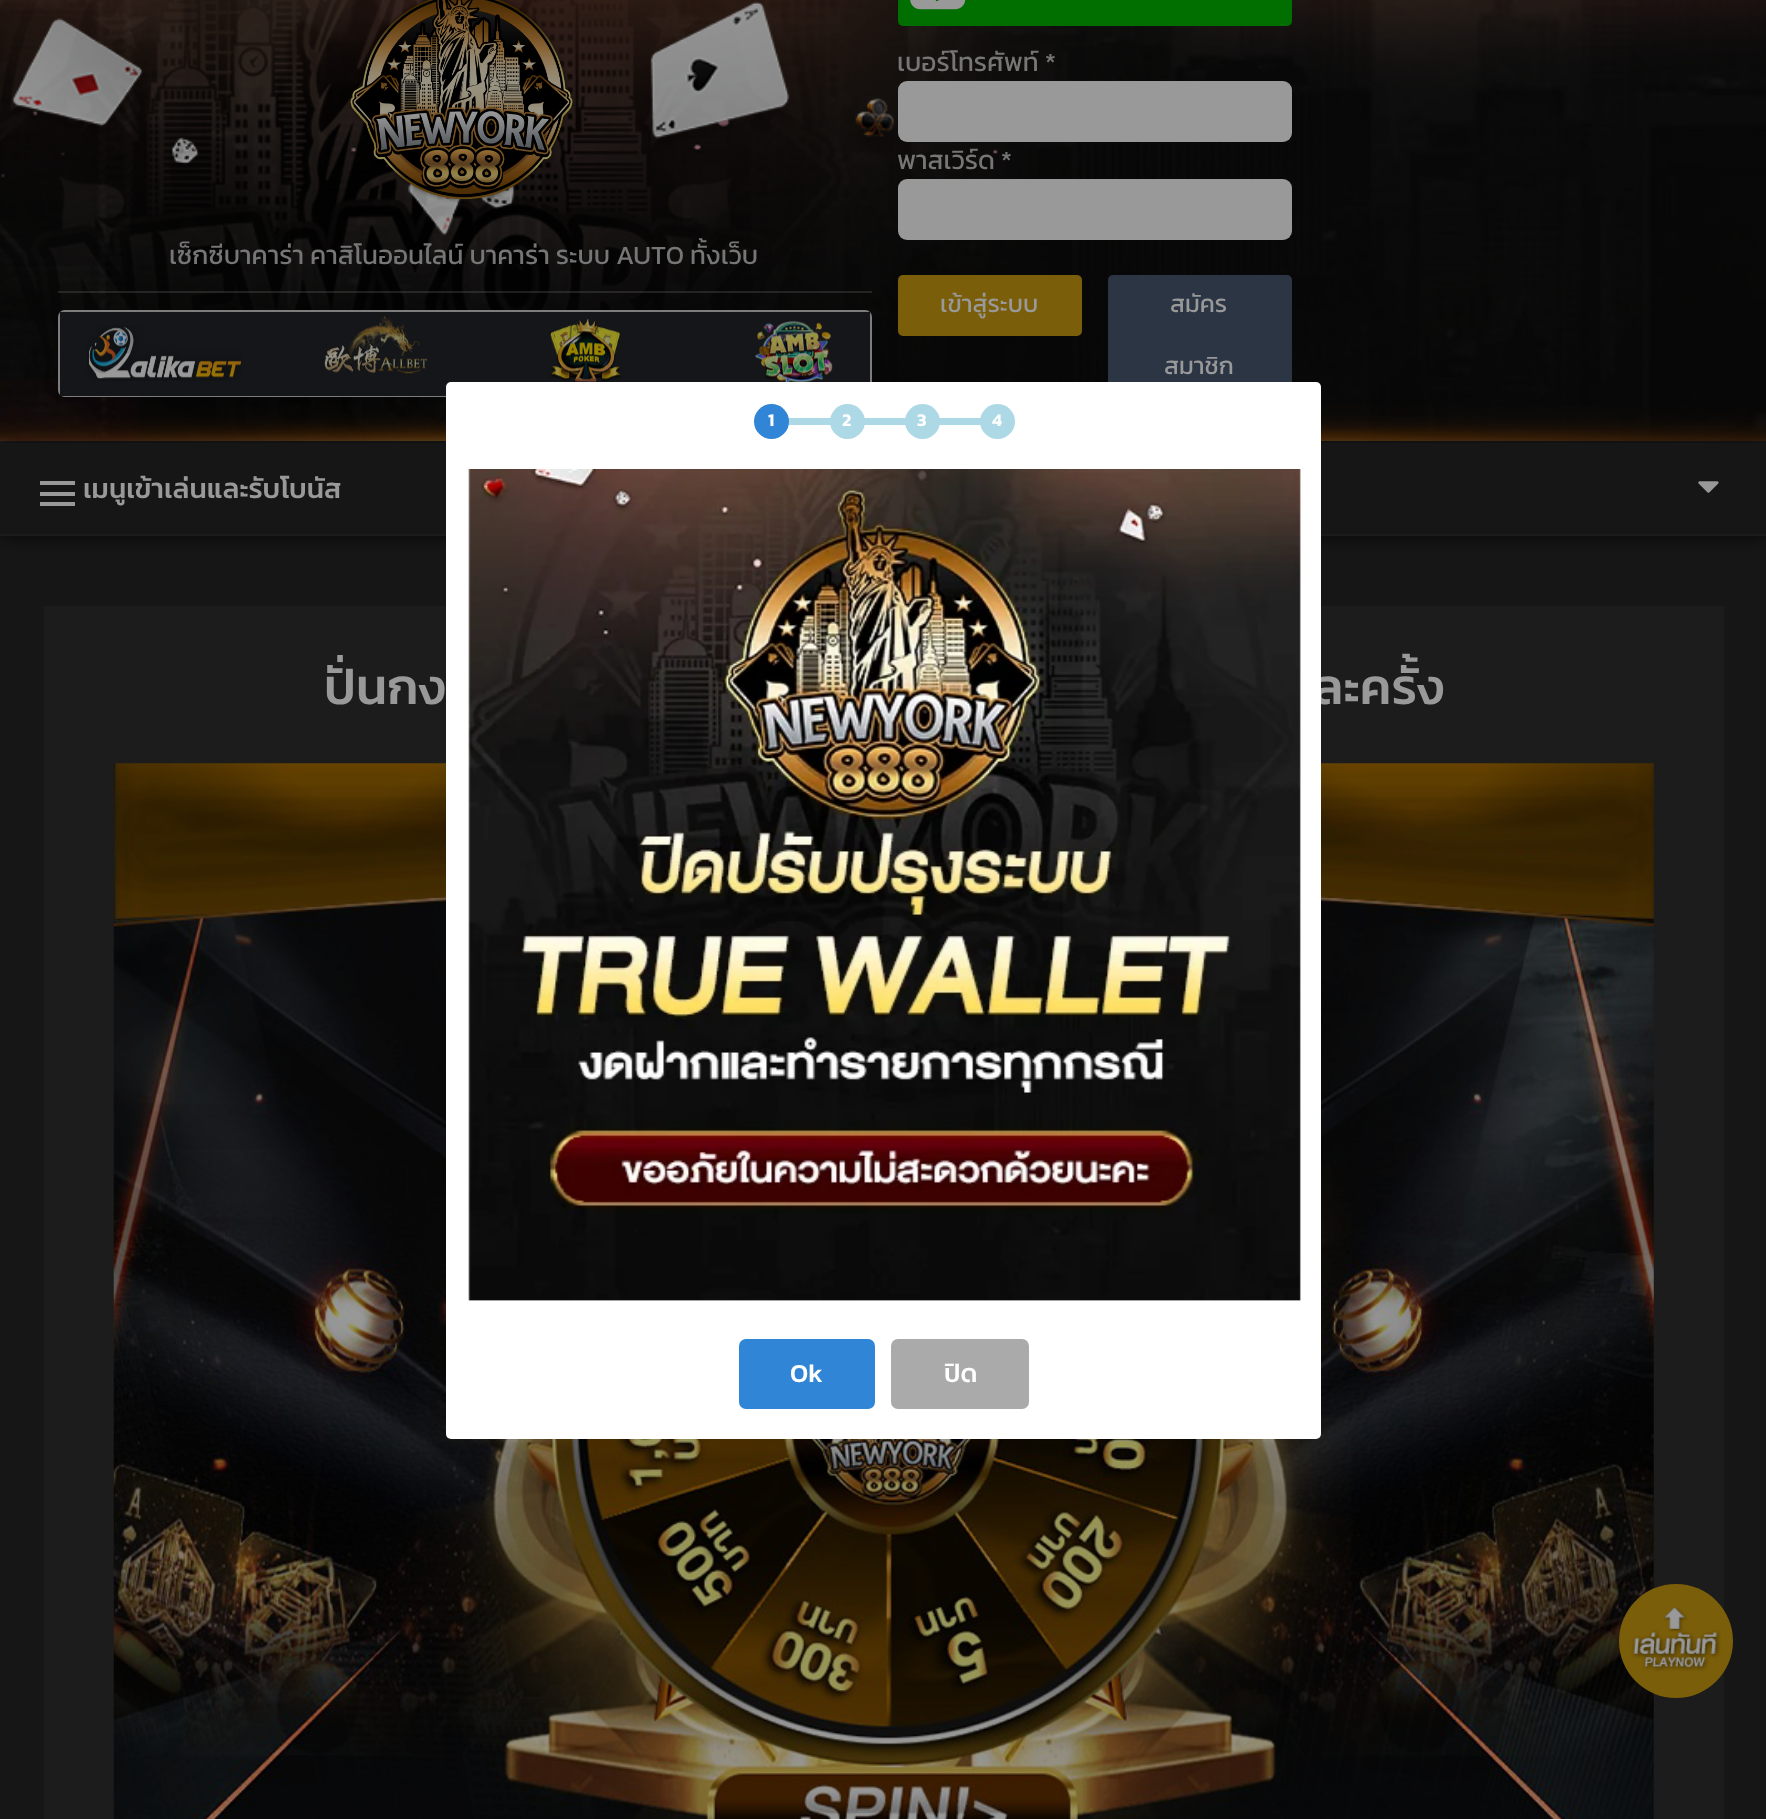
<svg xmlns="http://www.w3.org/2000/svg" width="1766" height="1819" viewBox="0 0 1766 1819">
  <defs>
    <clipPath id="clip1"><path d="M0 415H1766V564H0ZM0 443H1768V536H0Z" clip-rule="evenodd"/></clipPath>
    <filter id="blur1" x="-50%" y="-200%" width="200%" height="500%"><feGaussianBlur stdDeviation="9"/></filter>
  </defs>
  <rect width="100%" height="100%" fill="#161616"/>
  <image x="0" y="0" width="1766" height="441" href="img1.png"/>
  <rect x="0" y="441" width="1766" height="2" fill="#1b1b1b"/>
  <image x="348" y="0" width="227" height="203" href="img2.png"/>
  <text x="169" y="264" font-family="Kanit" font-size="26.25" fill="#767676">เซ็กซีบาคาร่า คาสิโนออนไลน์ บาคาร่า ระบบ AUTO ทั้งเว็บ</text>
  <rect x="58" y="291" width="814" height="2" fill="#767676" fill-opacity="0.25"/>
  <rect x="58" y="310" width="814" height="87" rx="7" fill="#999999"/>
  <rect x="59" y="311" width="812" height="85" rx="6" fill="none" stroke="#000000" stroke-opacity="0.18" stroke-width="2"/>
  <rect x="60" y="312" width="810" height="84" fill="#141619"/>
  <image x="87" y="325" width="155" height="56" href="img3.png"/>
  <image x="324" y="315" width="103" height="59" href="img4.png"/>
  <image x="549" y="318" width="72" height="64" href="img5.png"/>
  <image x="755" y="320" width="78" height="62" href="img6.png"/>
  <rect x="898" y="-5" width="394" height="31" rx="5" fill="#006f00"/>
  <image x="910" y="0" width="56" height="10" href="img7.png"/>
  <text x="897" y="71" font-family="Kanit" font-size="26.25" fill="#767676">เบอร์โทรศัพท์ *</text>
  <rect x="898" y="81" width="394" height="61" rx="9" fill="#999999"/>
  <text x="897" y="169" font-family="Kanit" font-size="26.25" fill="#767676">พาสเวิร์ด *</text>
  <rect x="898" y="179" width="394" height="61" rx="9" fill="#999999"/>
  <rect x="898" y="275" width="184" height="61" rx="5" fill="#7b5e09"/>
  <text x="940" y="312" font-family="Kanit" font-size="24.5" fill="#999999">เข้าสู่ระบบ</text>
  <rect x="1108" y="275" width="184" height="122" rx="5" fill="#2b3544"/>
  <text x="1170" y="312" font-family="Kanit" font-size="24.5" fill="#999999">สมัคร</text>
  <text x="1164" y="374" font-family="Kanit" font-size="24.5" fill="#999999">สมาชิก</text>
  <g clip-path="url(#clip1)">
    <rect x="0" y="443" width="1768" height="93" fill="#000000" fill-opacity="0.75" filter="url(#blur1)"/>
  </g>
  <rect x="0" y="534" width="1766" height="2" fill="#1b1b1b"/>
  <rect x="40" y="492" width="35" height="4" fill="#999999"/>
  <rect x="40" y="481" width="35" height="4" fill="#999999"/>
  <rect x="40" y="502" width="35" height="4" fill="#999999"/>
  <text x="83" y="498" font-family="Kanit" font-size="28" font-weight="500" fill="#999999">เมนูเข้าเล่นและรับโบนัส</text>
  <image x="1698" y="481" width="21" height="12" href="img8.png"/>
  <rect x="44" y="606" width="1680" height="1213" fill="#1c1c1c"/>
  <text x="324" y="704" font-family="Kanit" font-size="50.5" font-weight="500" fill="#999999">ปั่นกง</text>
  <text x="1313" y="704" font-family="Kanit" font-size="50.5" font-weight="500" fill="#999999">ละครั้ง</text>
  <image x="113" y="763" width="1541" height="1056" href="img9.png"/>
  <circle cx="1676" cy="1641" r="57" fill="#7b5e09"/>
  <image x="1631" y="1607" width="90" height="65" href="img10.png"/>
  <rect x="446" y="382" width="875" height="1057" rx="5" fill="#ffffff"/>
  <rect x="788" y="418" width="43" height="7" fill="#add8e6"/>
  <circle cx="771.5" cy="421.5" r="17.5" fill="#3085d6"/>
  <text x="768" y="426" font-family="Kanit" font-size="18" font-weight="600" fill="#ffffff">1</text>
  <rect x="863" y="418" width="44" height="7" fill="#add8e6"/>
  <circle cx="847.5" cy="421.5" r="17.5" fill="#add8e6"/>
  <text x="842" y="426" font-family="Kanit" font-size="18" font-weight="600" fill="#ffffff">2</text>
  <rect x="938" y="418" width="44" height="7" fill="#add8e6"/>
  <circle cx="922.5" cy="421.5" r="17.5" fill="#add8e6"/>
  <text x="917" y="426" font-family="Kanit" font-size="18" font-weight="600" fill="#ffffff">3</text>
  <circle cx="997.5" cy="421.5" r="17.5" fill="#add8e6"/>
  <text x="992" y="426" font-family="Kanit" font-size="18" font-weight="600" fill="#ffffff">4</text>
  <image x="468" y="469" width="833" height="832" href="img11.png"/>
  <rect x="739" y="1339" width="136" height="70" rx="7" fill="#3085d6"/>
  <text x="790" y="1382" font-family="Kanit" font-size="26" font-weight="500" fill="#ffffff">Ok</text>
  <rect x="891" y="1339" width="138" height="70" rx="7" fill="#aaaaaa"/>
  <text x="944" y="1382" font-family="Kanit" font-size="26" font-weight="500" fill="#ffffff">ปิด</text>
</svg>
